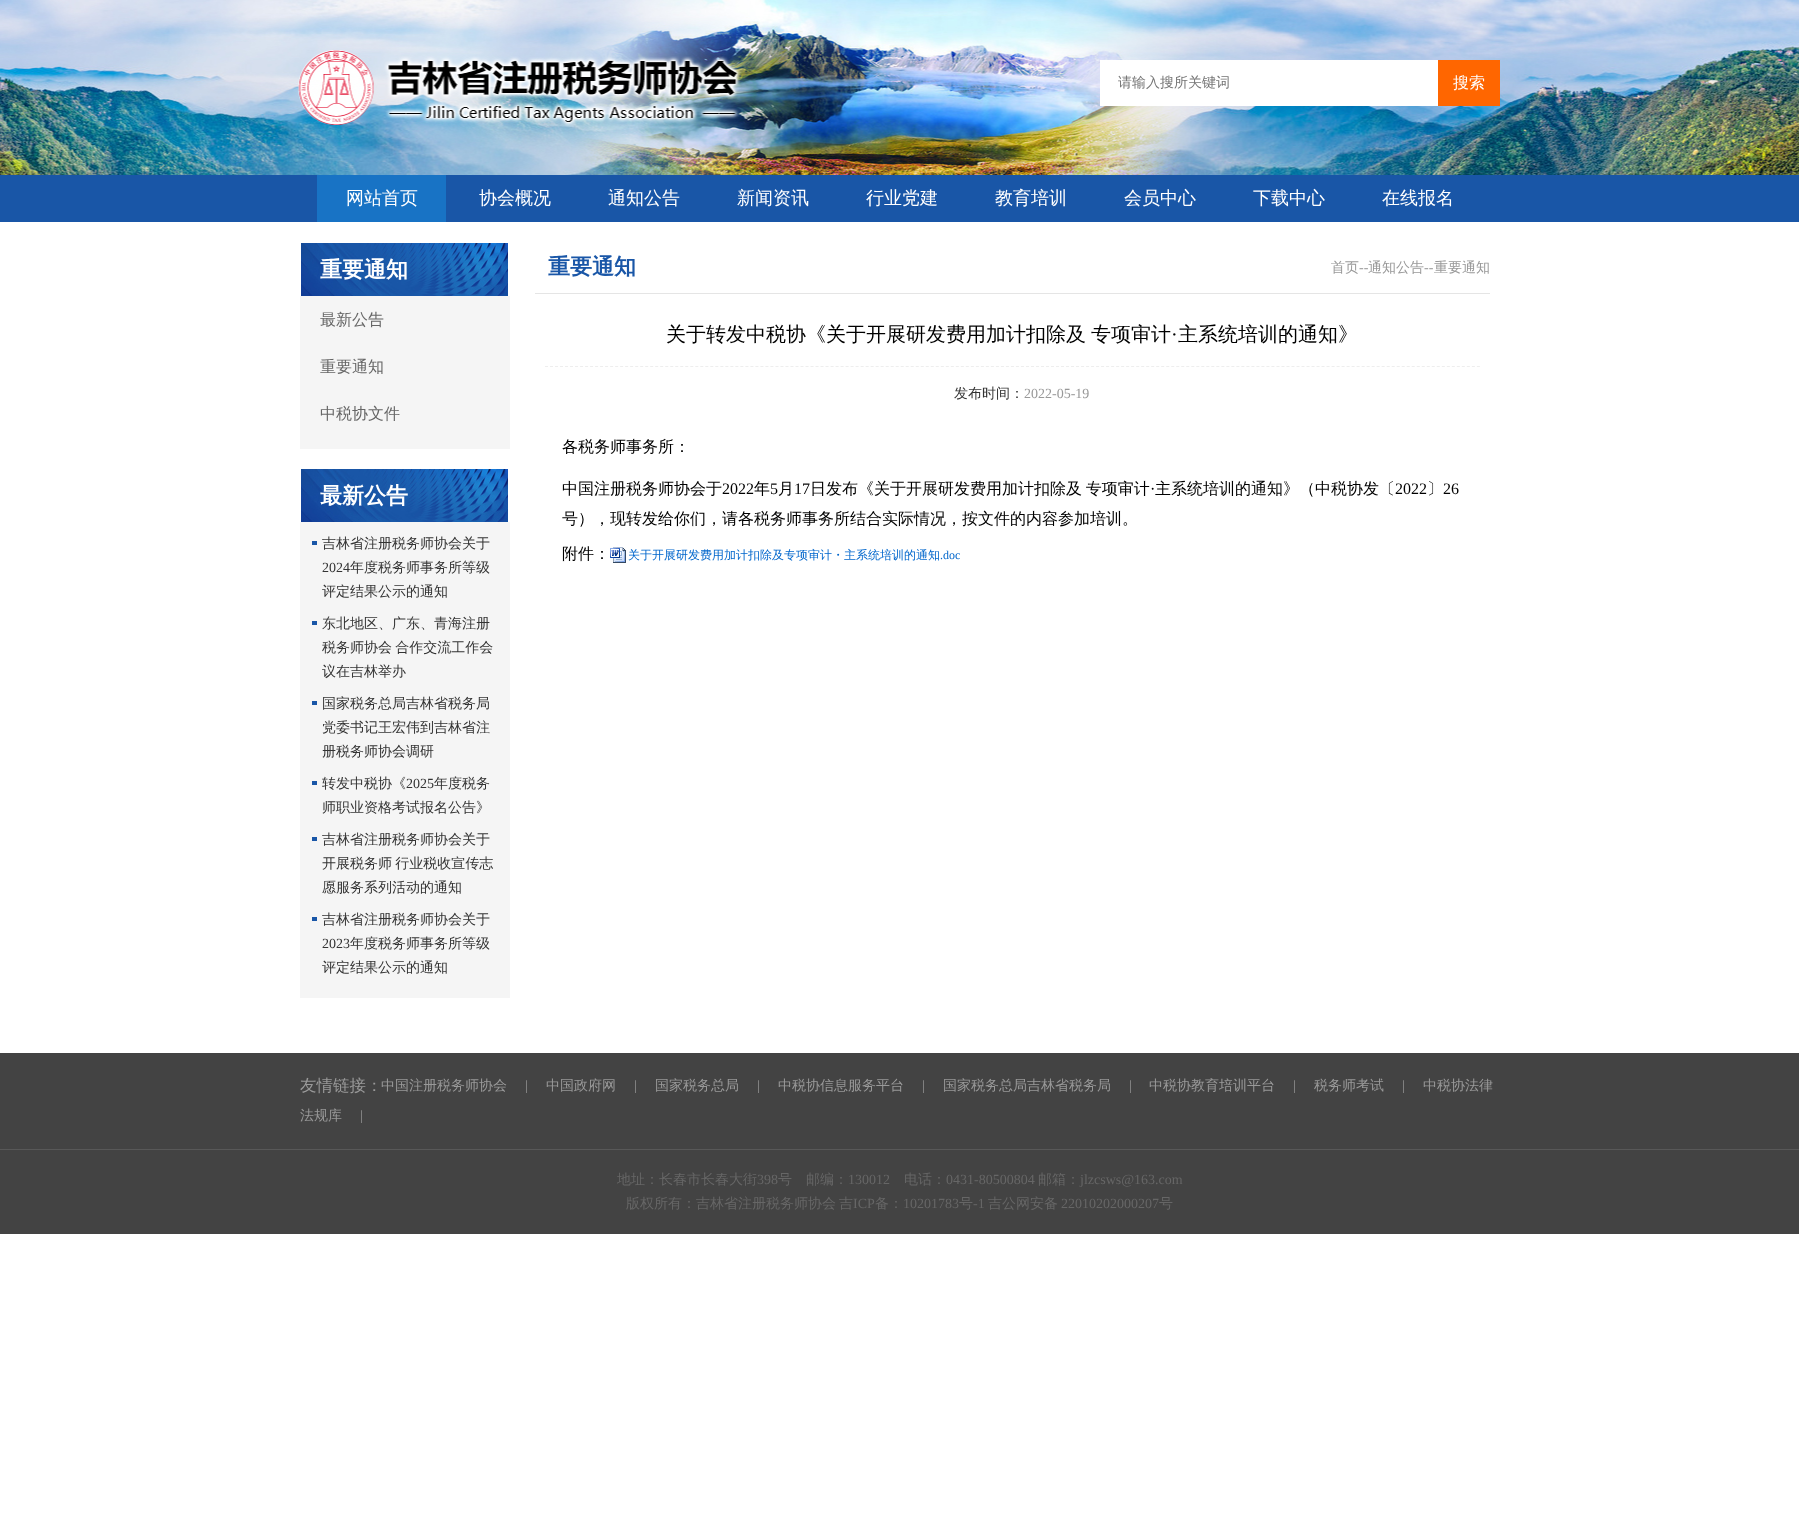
<svg xmlns="http://www.w3.org/2000/svg" width="1799" height="1514" viewBox="0 0 1799 1514">
  <rect width="100%" height="100%" fill="#ffffff"/>
  <image x="0" y="0" width="1799" height="175" href="img1.png"/>
  <rect x="1100" y="60" width="338" height="46" fill="#ffffff"/>
  <text x="1118" y="87" font-family="WenQuanYi Zen Hei" font-size="14" font-weight="500" fill="#757575">请输入搜所关键词</text>
  <rect x="1438" y="60" width="62" height="46" fill="#ff6600"/>
  <text x="1453" y="88" font-family="WenQuanYi Zen Hei" font-size="16" font-weight="500" fill="#ffffff">搜索</text>
  <rect x="0" y="175" width="1799" height="47" fill="#1956a7"/>
  <rect x="317" y="175" width="129" height="47" fill="#1873c5"/>
  <text x="346" y="204" font-family="WenQuanYi Zen Hei" font-size="18" font-weight="500" fill="#ffffff">网站首页</text>
  <text x="479" y="204" font-family="WenQuanYi Zen Hei" font-size="18" font-weight="500" fill="#ffffff">协会概况</text>
  <text x="608" y="204" font-family="WenQuanYi Zen Hei" font-size="18" font-weight="500" fill="#ffffff">通知公告</text>
  <text x="737" y="204" font-family="WenQuanYi Zen Hei" font-size="18" font-weight="500" fill="#ffffff">新闻资讯</text>
  <text x="866" y="204" font-family="WenQuanYi Zen Hei" font-size="18" font-weight="500" fill="#ffffff">行业党建</text>
  <text x="995" y="204" font-family="WenQuanYi Zen Hei" font-size="18" font-weight="500" fill="#ffffff">教育培训</text>
  <text x="1124" y="204" font-family="WenQuanYi Zen Hei" font-size="18" font-weight="500" fill="#ffffff">会员中心</text>
  <text x="1253" y="204" font-family="WenQuanYi Zen Hei" font-size="18" font-weight="500" fill="#ffffff">下载中心</text>
  <text x="1382" y="204" font-family="WenQuanYi Zen Hei" font-size="18" font-weight="500" fill="#ffffff">在线报名</text>
  <image x="301" y="243" width="207" height="53" href="img2.png"/>
  <text x="320" y="277" font-family="WenQuanYi Zen Hei" font-size="22" font-weight="bold" fill="#ffffff">重要通知</text>
  <rect x="300" y="296" width="210" height="153" fill="#f5f5f5"/>
  <text x="320" y="325" font-family="WenQuanYi Zen Hei" font-size="16" font-weight="500" fill="#666666">最新公告</text>
  <text x="320" y="372" font-family="WenQuanYi Zen Hei" font-size="16" font-weight="500" fill="#666666">重要通知</text>
  <text x="320" y="419" font-family="WenQuanYi Zen Hei" font-size="16" font-weight="500" fill="#666666">中税协文件</text>
  <image x="301" y="469" width="207" height="53" href="img2.png"/>
  <text x="320" y="503" font-family="WenQuanYi Zen Hei" font-size="22" font-weight="bold" fill="#ffffff">最新公告</text>
  <rect x="300" y="522" width="210" height="476" fill="#f5f5f5"/>
  <rect x="312" y="541" width="5" height="4" fill="#1956a7"/>
  <text x="322" y="548" font-family="WenQuanYi Zen Hei" font-size="14" font-weight="500" fill="#333333">吉林省注册税务师协会关于</text>
  <text x="322" y="572" font-family="Liberation Serif" font-size="14" fill="#333333">2024</text>
  <text x="350" y="572" font-family="WenQuanYi Zen Hei" font-size="14" font-weight="500" fill="#333333">年度税务师事务所等级</text>
  <text x="322" y="596" font-family="WenQuanYi Zen Hei" font-size="14" font-weight="500" fill="#333333">评定结果公示的通知</text>
  <rect x="312" y="621" width="5" height="4" fill="#1956a7"/>
  <text x="322" y="628" font-family="WenQuanYi Zen Hei" font-size="14" font-weight="500" fill="#333333">东北地区、广东、青海注册</text>
  <text x="322" y="652" word-spacing="-1" font-family="WenQuanYi Zen Hei" font-size="14" font-weight="500" fill="#333333">税务师协会 合作交流工作会</text>
  <text x="322" y="676" font-family="WenQuanYi Zen Hei" font-size="14" font-weight="500" fill="#333333">议在吉林举办</text>
  <rect x="312" y="701" width="5" height="4" fill="#1956a7"/>
  <text x="322" y="708" font-family="WenQuanYi Zen Hei" font-size="14" font-weight="500" fill="#333333">国家税务总局吉林省税务局</text>
  <text x="322" y="732" font-family="WenQuanYi Zen Hei" font-size="14" font-weight="500" fill="#333333">党委书记王宏伟到吉林省注</text>
  <text x="322" y="756" font-family="WenQuanYi Zen Hei" font-size="14" font-weight="500" fill="#333333">册税务师协会调研</text>
  <rect x="312" y="781" width="5" height="4" fill="#1956a7"/>
  <text x="322" y="788" font-family="WenQuanYi Zen Hei" font-size="14" font-weight="500" fill="#333333">转发中税协《</text>
  <text x="406" y="788" font-family="Liberation Serif" font-size="14" fill="#333333">2025</text>
  <text x="434" y="788" font-family="WenQuanYi Zen Hei" font-size="14" font-weight="500" fill="#333333">年度税务</text>
  <text x="322" y="812" font-family="WenQuanYi Zen Hei" font-size="14" font-weight="500" fill="#333333">师职业资格考试报名公告》</text>
  <rect x="312" y="837" width="5" height="4" fill="#1956a7"/>
  <text x="322" y="844" font-family="WenQuanYi Zen Hei" font-size="14" font-weight="500" fill="#333333">吉林省注册税务师协会关于</text>
  <text x="322" y="868" word-spacing="-1" font-family="WenQuanYi Zen Hei" font-size="14" font-weight="500" fill="#333333">开展税务师 行业税收宣传志</text>
  <text x="322" y="892" font-family="WenQuanYi Zen Hei" font-size="14" font-weight="500" fill="#333333">愿服务系列活动的通知</text>
  <rect x="312" y="917" width="5" height="4" fill="#1956a7"/>
  <text x="322" y="924" font-family="WenQuanYi Zen Hei" font-size="14" font-weight="500" fill="#333333">吉林省注册税务师协会关于</text>
  <text x="322" y="948" font-family="Liberation Serif" font-size="14" fill="#333333">2023</text>
  <text x="350" y="948" font-family="WenQuanYi Zen Hei" font-size="14" font-weight="500" fill="#333333">年度税务师事务所等级</text>
  <text x="322" y="972" font-family="WenQuanYi Zen Hei" font-size="14" font-weight="500" fill="#333333">评定结果公示的通知</text>
  <rect x="535" y="293" width="955" height="1" fill="#e5e5e5"/>
  <text x="548" y="274" font-family="WenQuanYi Zen Hei" font-size="22" font-weight="bold" fill="#1956a7">重要通知</text>
  <text x="1331" y="272" font-family="WenQuanYi Zen Hei" font-size="14" font-weight="500" fill="#999999">首页</text>
  <text x="1359" y="272" font-family="Liberation Serif" font-size="14" fill="#999999">--</text>
  <text x="1368" y="272" font-family="WenQuanYi Zen Hei" font-size="14" font-weight="500" fill="#999999">通知公告</text>
  <text x="1424" y="272" font-family="Liberation Serif" font-size="14" fill="#999999">--</text>
  <text x="1434" y="272" font-family="WenQuanYi Zen Hei" font-size="14" font-weight="500" fill="#999999">重要通知</text>
  <text x="666" y="341" word-spacing="-1" font-family="WenQuanYi Zen Hei" font-size="20" font-weight="500" fill="#000000">关于转发中税协《关于开展研发费用加计扣除及 专项审计</text>
  <text x="1171" y="341" font-family="Liberation Serif" font-size="20" fill="#000000">·</text>
  <text x="1178" y="341" font-family="WenQuanYi Zen Hei" font-size="20" font-weight="500" fill="#000000">主系统培训的通知》</text>
  <path d="M545 366.5H1480" fill="none" stroke="#eeeeee" stroke-dasharray="3 2.01"/>
  <text x="954" y="398" font-family="WenQuanYi Zen Hei" font-size="14" font-weight="500" fill="#333333">发布时间：</text>
  <text x="1024" y="398" font-family="Liberation Serif" font-size="14" fill="#999999">2022-05-19</text>
  <text x="562" y="452" font-family="WenQuanYi Zen Hei" font-size="16" font-weight="500" fill="#000000">各税务师事务所：</text>
  <text x="562" y="494" font-family="WenQuanYi Zen Hei" font-size="16" font-weight="500" fill="#000000">中国注册税务师协会于</text>
  <text x="722" y="494" font-family="Liberation Serif" font-size="16" fill="#000000">2022</text>
  <text x="754" y="494" font-family="WenQuanYi Zen Hei" font-size="16" font-weight="500" fill="#000000">年</text>
  <text x="770" y="494" font-family="Liberation Serif" font-size="16" fill="#000000">5</text>
  <text x="778" y="494" font-family="WenQuanYi Zen Hei" font-size="16" font-weight="500" fill="#000000">月</text>
  <text x="794" y="494" font-family="Liberation Serif" font-size="16" fill="#000000">17</text>
  <text x="810" y="494" word-spacing="-1" font-family="WenQuanYi Zen Hei" font-size="16" font-weight="500" fill="#000000">日发布《关于开展研发费用加计扣除及 专项审计</text>
  <text x="1150" y="494" font-family="Liberation Serif" font-size="16" fill="#000000">·</text>
  <text x="1155" y="494" font-family="WenQuanYi Zen Hei" font-size="16" font-weight="500" fill="#000000">主系统培训的通知》（中税协发〔</text>
  <text x="1395" y="494" font-family="Liberation Serif" font-size="16" fill="#000000">2022</text>
  <text x="1427" y="494" font-family="WenQuanYi Zen Hei" font-size="16" font-weight="500" fill="#000000">〕</text>
  <text x="1443" y="494" font-family="Liberation Serif" font-size="16" fill="#000000">26</text>
  <text x="562" y="524" font-family="WenQuanYi Zen Hei" font-size="16" font-weight="500" fill="#000000">号），现转发给你们，请各税务师事务所结合实际情况，按文件的内容参加培训。</text>
  <text x="562" y="559" font-family="WenQuanYi Zen Hei" font-size="16" font-weight="500" fill="#000000">附件：</text>
  <image x="610" y="547" width="16" height="16" href="img3.png"/>
  <text x="628" y="559" font-family="WenQuanYi Zen Hei" font-size="12" font-weight="500" fill="#0066cc">关于开展研发费用加计扣除及专项审计・主系统培训的通知</text>
  <text x="940" y="559" font-family="Liberation Serif" font-size="12" fill="#0066cc">.doc</text>
  <rect x="0" y="1053" width="1799" height="96" fill="#434343"/>
  <rect x="0" y="1149" width="1799" height="1" fill="#585858"/>
  <text x="300" y="1091" font-family="WenQuanYi Zen Hei" font-size="16.5" font-weight="500" fill="#999999">友情链接：</text>
  <text x="381" y="1090" font-family="WenQuanYi Zen Hei" font-size="14" font-weight="500" fill="#999999">中国注册税务师协会</text>
  <text x="525" y="1090" font-family="Liberation Serif" font-size="14" fill="#999999">|</text>
  <text x="546" y="1090" font-family="WenQuanYi Zen Hei" font-size="14" font-weight="500" fill="#999999">中国政府网</text>
  <text x="634" y="1090" font-family="Liberation Serif" font-size="14" fill="#999999">|</text>
  <text x="655" y="1090" font-family="WenQuanYi Zen Hei" font-size="14" font-weight="500" fill="#999999">国家税务总局</text>
  <text x="757" y="1090" font-family="Liberation Serif" font-size="14" fill="#999999">|</text>
  <text x="778" y="1090" font-family="WenQuanYi Zen Hei" font-size="14" font-weight="500" fill="#999999">中税协信息服务平台</text>
  <text x="922" y="1090" font-family="Liberation Serif" font-size="14" fill="#999999">|</text>
  <text x="943" y="1090" font-family="WenQuanYi Zen Hei" font-size="14" font-weight="500" fill="#999999">国家税务总局吉林省税务局</text>
  <text x="1129" y="1090" font-family="Liberation Serif" font-size="14" fill="#999999">|</text>
  <text x="1149" y="1090" font-family="WenQuanYi Zen Hei" font-size="14" font-weight="500" fill="#999999">中税协教育培训平台</text>
  <text x="1293" y="1090" font-family="Liberation Serif" font-size="14" fill="#999999">|</text>
  <text x="1314" y="1090" font-family="WenQuanYi Zen Hei" font-size="14" font-weight="500" fill="#999999">税务师考试</text>
  <text x="1402" y="1090" font-family="Liberation Serif" font-size="14" fill="#999999">|</text>
  <text x="1423" y="1090" font-family="WenQuanYi Zen Hei" font-size="14" font-weight="500" fill="#999999">中税协法律</text>
  <text x="300" y="1120" font-family="WenQuanYi Zen Hei" font-size="14" font-weight="500" fill="#999999">法规库</text>
  <text x="360" y="1120" font-family="Liberation Serif" font-size="14" fill="#999999">|</text>
  <rect x="0" y="1150" width="1799" height="84" fill="#434343"/>
  <text x="617" y="1184" font-family="WenQuanYi Zen Hei" font-size="14" font-weight="500" fill="#666666">地址：长春市长春大街</text>
  <text x="757" y="1184" font-family="Liberation Serif" font-size="14" fill="#666666">398</text>
  <text x="778" y="1184" font-family="WenQuanYi Zen Hei" font-size="14" font-weight="500" fill="#666666">号　邮编：</text>
  <text x="848" y="1184" font-family="Liberation Serif" font-size="14" fill="#666666">130012</text>
  <text x="904" y="1184" font-family="WenQuanYi Zen Hei" font-size="14" font-weight="500" fill="#666666">电话：</text>
  <text x="946" y="1184" font-family="Liberation Serif" font-size="14" fill="#666666">0431-80500804</text>
  <text x="1038" y="1184" font-family="WenQuanYi Zen Hei" font-size="14" font-weight="500" fill="#666666">邮箱：</text>
  <text x="1080" y="1184" font-family="Liberation Serif" font-size="14" fill="#666666">jlzcsws@163.com</text>
  <text x="626" y="1208" font-family="WenQuanYi Zen Hei" font-size="14" font-weight="500" fill="#666666">版权所有：吉林省注册税务师协会</text>
  <text x="839" y="1208" font-family="WenQuanYi Zen Hei" font-size="14" font-weight="500" fill="#666666">吉</text>
  <text x="853" y="1208" font-family="Liberation Serif" font-size="14" fill="#666666">ICP</text>
  <text x="875" y="1208" font-family="WenQuanYi Zen Hei" font-size="14" font-weight="500" fill="#666666">备：</text>
  <text x="903" y="1208" font-family="Liberation Serif" font-size="14" fill="#666666">10201783</text>
  <text x="959" y="1208" font-family="WenQuanYi Zen Hei" font-size="14" font-weight="500" fill="#666666">号</text>
  <text x="973" y="1208" font-family="Liberation Serif" font-size="14" fill="#666666">-1</text>
  <text x="988" y="1208" font-family="WenQuanYi Zen Hei" font-size="14" font-weight="500" fill="#666666">吉公网安备</text>
  <text x="1061" y="1208" font-family="Liberation Serif" font-size="14" fill="#666666">22010202000207</text>
  <text x="1159" y="1208" font-family="WenQuanYi Zen Hei" font-size="14" font-weight="500" fill="#666666">号</text>
</svg>
